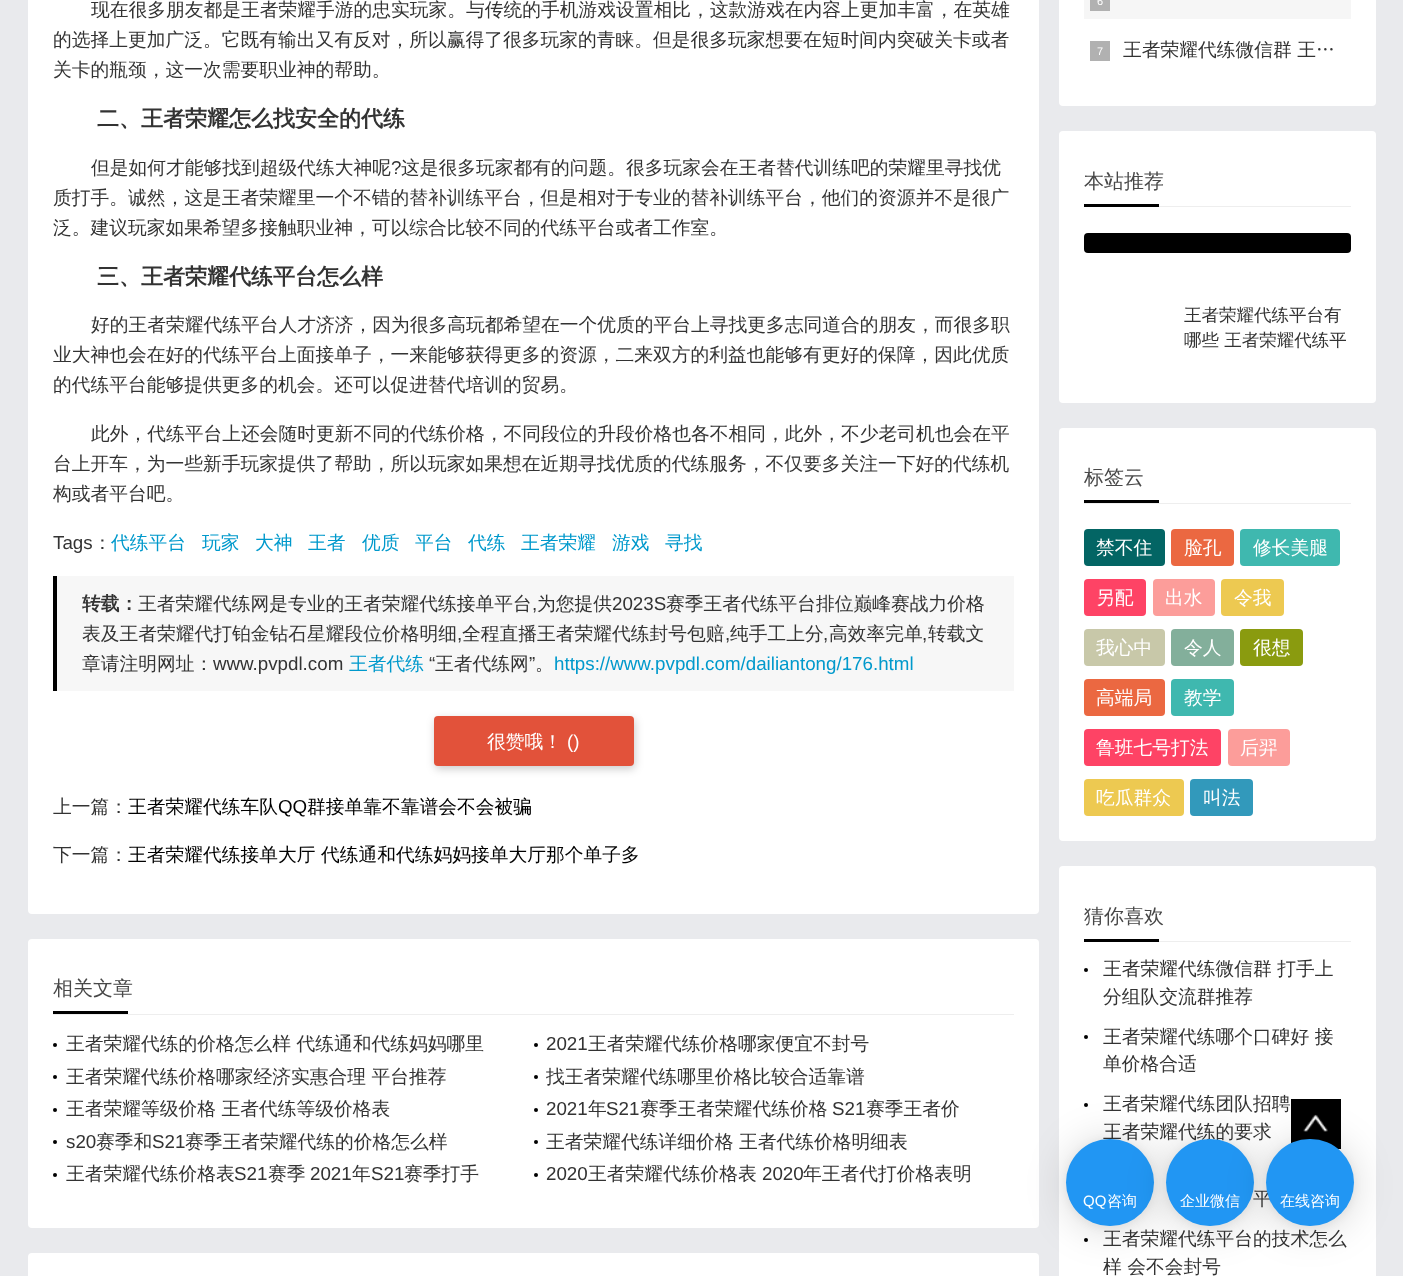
<svg xmlns="http://www.w3.org/2000/svg" width="1403" height="1276" viewBox="0 0 1403 1276">
  <defs>
    <filter id="blur1" x="-50%" y="-200%" width="200%" height="500%"><feGaussianBlur stdDeviation="4"/></filter>
    <filter id="blur2" x="-50%" y="-200%" width="200%" height="500%"><feGaussianBlur stdDeviation="20"/></filter>
  </defs>
  <rect width="100%" height="100%" fill="#e9eaed"/>
  <rect x="28" y="-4" width="1011" height="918" rx="4" fill="#ffffff"/>
  <text x="91" y="16" font-family="WenQuanYi Zen Hei" font-size="18.75" font-weight="500" fill="#333333">现在很多朋友都是王者荣耀手游的忠实玩家。与传统的手机游戏设置相比，这款游戏在内容上更加丰富，在英雄</text>
  <text x="53" y="46" font-family="WenQuanYi Zen Hei" font-size="18.75" font-weight="500" fill="#333333">的选择上更加广泛。它既有输出又有反对，所以赢得了很多玩家的青睐。但是很多玩家想要在短时间内突破关卡或者</text>
  <text x="53" y="76" font-family="WenQuanYi Zen Hei" font-size="18.75" font-weight="500" fill="#333333">关卡的瓶颈，这一次需要职业神的帮助。</text>
  <text x="97" y="126" font-family="WenQuanYi Zen Hei" font-size="22" font-weight="bold" fill="#333333">二、王者荣耀怎么找安全的代练</text>
  <text x="91" y="174" font-family="WenQuanYi Zen Hei" font-size="18.75" font-weight="500" fill="#333333">但是如何才能够找到超级代练大神呢</text>
  <text x="391" y="174" font-family="Liberation Sans" font-size="18.75" fill="#333333">?</text>
  <text x="401" y="174" font-family="WenQuanYi Zen Hei" font-size="18.75" font-weight="500" fill="#333333">这是很多玩家都有的问题。很多玩家会在王者替代训练吧的荣耀里寻找优</text>
  <text x="53" y="204" font-family="WenQuanYi Zen Hei" font-size="18.75" font-weight="500" fill="#333333">质打手。诚然，这是王者荣耀里一个不错的替补训练平台，但是相对于专业的替补训练平台，他们的资源并不是很广</text>
  <text x="53" y="234" font-family="WenQuanYi Zen Hei" font-size="18.75" font-weight="500" fill="#333333">泛。建议玩家如果希望多接触职业神，可以综合比较不同的代练平台或者工作室。</text>
  <text x="97" y="284" font-family="WenQuanYi Zen Hei" font-size="22" font-weight="bold" fill="#333333">三、王者荣耀代练平台怎么样</text>
  <text x="91" y="331" font-family="WenQuanYi Zen Hei" font-size="18.75" font-weight="500" fill="#333333">好的王者荣耀代练平台人才济济，因为很多高玩都希望在一个优质的平台上寻找更多志同道合的朋友，而很多职</text>
  <text x="53" y="361" font-family="WenQuanYi Zen Hei" font-size="18.75" font-weight="500" fill="#333333">业大神也会在好的代练平台上面接单子，一来能够获得更多的资源，二来双方的利益也能够有更好的保障，因此优质</text>
  <text x="53" y="391" font-family="WenQuanYi Zen Hei" font-size="18.75" font-weight="500" fill="#333333">的代练平台能够提供更多的机会。还可以促进替代培训的贸易。</text>
  <text x="91" y="440" font-family="WenQuanYi Zen Hei" font-size="18.75" font-weight="500" fill="#333333">此外，代练平台上还会随时更新不同的代练价格，不同段位的升段价格也各不相同，此外，不少老司机也会在平</text>
  <text x="53" y="470" font-family="WenQuanYi Zen Hei" font-size="18.75" font-weight="500" fill="#333333">台上开车，为一些新手玩家提供了帮助，所以玩家如果想在近期寻找优质的代练服务，不仅要多关注一下好的代练机</text>
  <text x="53" y="500" font-family="WenQuanYi Zen Hei" font-size="18.75" font-weight="500" fill="#333333">构或者平台吧。</text>
  <text x="53" y="549" font-family="Liberation Sans" font-size="18.75" fill="#333333">Tags</text>
  <text x="93" y="549" font-family="WenQuanYi Zen Hei" font-size="18.75" font-weight="500" fill="#333333">：</text>
  <text x="111" y="549" font-family="WenQuanYi Zen Hei" font-size="18.75" font-weight="500" fill="#0099cc">代练平台</text>
  <text x="202" y="549" font-family="WenQuanYi Zen Hei" font-size="18.75" font-weight="500" fill="#0099cc">玩家</text>
  <text x="255" y="549" font-family="WenQuanYi Zen Hei" font-size="18.75" font-weight="500" fill="#0099cc">大神</text>
  <text x="308" y="549" font-family="WenQuanYi Zen Hei" font-size="18.75" font-weight="500" fill="#0099cc">王者</text>
  <text x="362" y="549" font-family="WenQuanYi Zen Hei" font-size="18.75" font-weight="500" fill="#0099cc">优质</text>
  <text x="415" y="549" font-family="WenQuanYi Zen Hei" font-size="18.75" font-weight="500" fill="#0099cc">平台</text>
  <text x="468" y="549" font-family="WenQuanYi Zen Hei" font-size="18.75" font-weight="500" fill="#0099cc">代练</text>
  <text x="521" y="549" font-family="WenQuanYi Zen Hei" font-size="18.75" font-weight="500" fill="#0099cc">王者荣耀</text>
  <text x="612" y="549" font-family="WenQuanYi Zen Hei" font-size="18.75" font-weight="500" fill="#0099cc">游戏</text>
  <text x="665" y="549" font-family="WenQuanYi Zen Hei" font-size="18.75" font-weight="500" fill="#0099cc">寻找</text>
  <rect x="57" y="576" width="957" height="115" fill="#f7f7f7"/>
  <rect x="53" y="576" width="4" height="115" fill="#000000"/>
  <text x="82" y="610" font-family="WenQuanYi Zen Hei" font-size="18.75" font-weight="bold" fill="#333333">转载：</text>
  <text x="138" y="610" font-family="WenQuanYi Zen Hei" font-size="18.75" font-weight="500" fill="#333333">王者荣耀代练网是专业的王者荣耀代练接单平台</text>
  <text x="532" y="610" font-family="Liberation Sans" font-size="18.75" fill="#333333">,</text>
  <text x="537" y="610" font-family="WenQuanYi Zen Hei" font-size="18.75" font-weight="500" fill="#333333">为您提供</text>
  <text x="612" y="610" font-family="Liberation Sans" font-size="18.75" fill="#333333">2023S</text>
  <text x="666" y="610" font-family="WenQuanYi Zen Hei" font-size="18.75" font-weight="500" fill="#333333">赛季王者代练平台排位巅峰赛战力价格</text>
  <text x="82" y="640" font-family="WenQuanYi Zen Hei" font-size="18.75" font-weight="500" fill="#333333">表及王者荣耀代打铂金钻石星耀段位价格明细</text>
  <text x="457" y="640" font-family="Liberation Sans" font-size="18.75" fill="#333333">,</text>
  <text x="462" y="640" font-family="WenQuanYi Zen Hei" font-size="18.75" font-weight="500" fill="#333333">全程直播王者荣耀代练封号包赔</text>
  <text x="725" y="640" font-family="Liberation Sans" font-size="18.75" fill="#333333">,</text>
  <text x="730" y="640" font-family="WenQuanYi Zen Hei" font-size="18.75" font-weight="500" fill="#333333">纯手工上分</text>
  <text x="823" y="640" font-family="Liberation Sans" font-size="18.75" fill="#333333">,</text>
  <text x="829" y="640" font-family="WenQuanYi Zen Hei" font-size="18.75" font-weight="500" fill="#333333">高效率完单</text>
  <text x="922" y="640" font-family="Liberation Sans" font-size="18.75" fill="#333333">,</text>
  <text x="928" y="640" font-family="WenQuanYi Zen Hei" font-size="18.75" font-weight="500" fill="#333333">转载文</text>
  <text x="82" y="670" font-family="WenQuanYi Zen Hei" font-size="18.75" font-weight="500" fill="#333333">章请注明网址：</text>
  <text x="213" y="670" font-family="Liberation Sans" font-size="18.75" fill="#333333">www.pvpdl.com</text>
  <text x="349" y="670" font-family="WenQuanYi Zen Hei" font-size="18.75" font-weight="500" fill="#0099cc">王者代练</text>
  <text x="429" y="670" font-family="Liberation Sans" font-size="18.75" fill="#333333">“</text>
  <text x="435" y="670" font-family="WenQuanYi Zen Hei" font-size="18.75" font-weight="500" fill="#333333">王者代练网</text>
  <text x="529" y="670" font-family="Liberation Sans" font-size="18.75" fill="#333333">”</text>
  <text x="554" y="670" font-family="Liberation Sans" font-size="18.75" fill="#0099cc">https://www.pvpdl.com/dailiantong/176.html</text>
  <text x="535" y="670" font-family="WenQuanYi Zen Hei" font-size="18.75" font-weight="500" fill="#333333">。</text>
  <rect x="435" y="719" width="200" height="50" rx="4" fill="#000000" fill-opacity="0.2" filter="url(#blur1)"/>
  <rect x="434" y="716" width="200" height="50" rx="4" fill="#e2523a"/>
  <text x="487" y="748" font-family="WenQuanYi Zen Hei" font-size="18.75" font-weight="500" fill="#ffffff">很赞哦！</text>
  <text x="567" y="748" font-family="Liberation Sans" font-size="18.75" fill="#ffffff">()</text>
  <text x="53" y="813" font-family="WenQuanYi Zen Hei" font-size="18.75" font-weight="500" fill="#333333">上一篇：</text>
  <text x="128" y="813" font-family="WenQuanYi Zen Hei" font-size="18.75" font-weight="500" fill="#000000">王者荣耀代练车队</text>
  <text x="278" y="813" font-family="Liberation Sans" font-size="18.75" fill="#000000">QQ</text>
  <text x="307" y="813" font-family="WenQuanYi Zen Hei" font-size="18.75" font-weight="500" fill="#000000">群接单靠不靠谱会不会被骗</text>
  <text x="53" y="861" font-family="WenQuanYi Zen Hei" font-size="18.75" font-weight="500" fill="#333333">下一篇：</text>
  <text x="128" y="861" font-family="WenQuanYi Zen Hei" font-size="18.75" font-weight="500" fill="#000000">王者荣耀代练接单大厅 代练通和代练妈妈接单大厅那个单子多</text>
  <rect x="28" y="939" width="1011" height="289" rx="4" fill="#ffffff"/>
  <rect x="53" y="1014" width="961" height="1" fill="#eeeeee"/>
  <text x="53" y="995" font-family="WenQuanYi Zen Hei" font-size="20" font-weight="500" fill="#484848">相关文章</text>
  <rect x="53" y="1011" width="75" height="3" fill="#000000"/>
  <circle cx="55" cy="1045" r="2" fill="#000000"/>
  <text x="66" y="1050" font-family="WenQuanYi Zen Hei" font-size="18.75" font-weight="500" fill="#333333">王者荣耀代练的价格怎么样 代练通和代练妈妈哪里</text>
  <circle cx="536" cy="1045" r="2" fill="#000000"/>
  <text x="546" y="1050" font-family="Liberation Sans" font-size="18.75" fill="#333333">2021</text>
  <text x="588" y="1050" font-family="WenQuanYi Zen Hei" font-size="18.75" font-weight="500" fill="#333333">王者荣耀代练价格哪家便宜不封号</text>
  <circle cx="55" cy="1077" r="2" fill="#000000"/>
  <text x="66" y="1083" font-family="WenQuanYi Zen Hei" font-size="18.75" font-weight="500" fill="#333333">王者荣耀代练价格哪家经济实惠合理 平台推荐</text>
  <circle cx="536" cy="1077" r="2" fill="#000000"/>
  <text x="546" y="1083" font-family="WenQuanYi Zen Hei" font-size="18.75" font-weight="500" fill="#333333">找王者荣耀代练哪里价格比较合适靠谱</text>
  <circle cx="55" cy="1110" r="2" fill="#000000"/>
  <text x="66" y="1115" font-family="WenQuanYi Zen Hei" font-size="18.75" font-weight="500" fill="#333333">王者荣耀等级价格 王者代练等级价格表</text>
  <circle cx="536" cy="1110" r="2" fill="#000000"/>
  <text x="546" y="1115" font-family="Liberation Sans" font-size="18.75" fill="#333333">2021</text>
  <text x="588" y="1115" font-family="WenQuanYi Zen Hei" font-size="18.75" font-weight="500" fill="#333333">年</text>
  <text x="606" y="1115" font-family="Liberation Sans" font-size="18.75" fill="#333333">S21</text>
  <text x="640" y="1115" font-family="WenQuanYi Zen Hei" font-size="18.75" font-weight="500" fill="#333333">赛季王者荣耀代练价格</text>
  <text x="832" y="1115" font-family="Liberation Sans" font-size="18.75" fill="#333333">S21</text>
  <text x="866" y="1115" font-family="WenQuanYi Zen Hei" font-size="18.75" font-weight="500" fill="#333333">赛季王者价</text>
  <circle cx="55" cy="1142" r="2" fill="#000000"/>
  <text x="66" y="1148" font-family="Liberation Sans" font-size="18.75" fill="#333333">s20</text>
  <text x="96" y="1148" font-family="WenQuanYi Zen Hei" font-size="18.75" font-weight="500" fill="#333333">赛季和</text>
  <text x="152" y="1148" font-family="Liberation Sans" font-size="18.75" fill="#333333">S21</text>
  <text x="185" y="1148" font-family="WenQuanYi Zen Hei" font-size="18.75" font-weight="500" fill="#333333">赛季王者荣耀代练的价格怎么样</text>
  <circle cx="536" cy="1142" r="2" fill="#000000"/>
  <text x="546" y="1148" font-family="WenQuanYi Zen Hei" font-size="18.75" font-weight="500" fill="#333333">王者荣耀代练详细价格 王者代练价格明细表</text>
  <circle cx="55" cy="1175" r="2" fill="#000000"/>
  <text x="66" y="1180" font-family="WenQuanYi Zen Hei" font-size="18.75" font-weight="500" fill="#333333">王者荣耀代练价格表</text>
  <text x="234" y="1180" font-family="Liberation Sans" font-size="18.75" fill="#333333">S21</text>
  <text x="268" y="1180" font-family="WenQuanYi Zen Hei" font-size="18.75" font-weight="500" fill="#333333">赛季</text>
  <text x="310" y="1180" font-family="Liberation Sans" font-size="18.75" fill="#333333">2021</text>
  <text x="352" y="1180" font-family="WenQuanYi Zen Hei" font-size="18.75" font-weight="500" fill="#333333">年</text>
  <text x="371" y="1180" font-family="Liberation Sans" font-size="18.75" fill="#333333">S21</text>
  <text x="404" y="1180" font-family="WenQuanYi Zen Hei" font-size="18.75" font-weight="500" fill="#333333">赛季打手</text>
  <circle cx="536" cy="1175" r="2" fill="#000000"/>
  <text x="546" y="1180" font-family="Liberation Sans" font-size="18.75" fill="#333333">2020</text>
  <text x="588" y="1180" font-family="WenQuanYi Zen Hei" font-size="18.75" font-weight="500" fill="#333333">王者荣耀代练价格表</text>
  <text x="762" y="1180" font-family="Liberation Sans" font-size="18.75" fill="#333333">2020</text>
  <text x="803" y="1180" font-family="WenQuanYi Zen Hei" font-size="18.75" font-weight="500" fill="#333333">年王者代打价格表明</text>
  <rect x="28" y="1253" width="1011" height="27" rx="4" fill="#ffffff"/>
  <rect x="1059" y="-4" width="317" height="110" rx="4" fill="#ffffff"/>
  <rect x="1084" y="0" width="267" height="19" fill="#f6f6f6"/>
  <rect x="1090" y="0" width="20" height="11" fill="#b1b1b1"/>
  <text x="1097" y="5" font-family="Liberation Sans" font-size="11" fill="#ffffff">6</text>
  <rect x="1090" y="41" width="20" height="20" fill="#b1b1b1"/>
  <text x="1097" y="55" font-family="Liberation Sans" font-size="11" fill="#ffffff">7</text>
  <text x="1123" y="56" font-family="WenQuanYi Zen Hei" font-size="18.75" font-weight="500" fill="#333333">王者荣耀代练微信群 王…</text>
  <rect x="1059" y="131" width="317" height="272" rx="4" fill="#ffffff"/>
  <rect x="1159" y="206" width="192" height="1" fill="#eeeeee"/>
  <text x="1084" y="188" font-family="WenQuanYi Zen Hei" font-size="20" font-weight="500" fill="#484848">本站推荐</text>
  <rect x="1084" y="204" width="75" height="3" fill="#000000"/>
  <rect x="1084" y="233" width="267" height="20" rx="4" fill="#000000"/>
  <text x="1184" y="321" font-family="WenQuanYi Zen Hei" font-size="17.5" font-weight="500" fill="#333333">王者荣耀代练平台有</text>
  <text x="1184" y="346" font-family="WenQuanYi Zen Hei" font-size="17.5" font-weight="500" fill="#333333">哪些 王者荣耀代练平</text>
  <rect x="1059" y="428" width="317" height="413" rx="4" fill="#ffffff"/>
  <rect x="1084" y="503" width="267" height="1" fill="#eeeeee"/>
  <text x="1084" y="484" font-family="WenQuanYi Zen Hei" font-size="20" font-weight="500" fill="#484848">标签云</text>
  <rect x="1084" y="500" width="75" height="3" fill="#000000"/>
  <rect x="1084" y="529" width="81" height="37" rx="4" fill="#036564"/>
  <text x="1096" y="554" font-family="WenQuanYi Zen Hei" font-size="18.75" font-weight="500" fill="#ffffff">禁不住</text>
  <rect x="1171" y="529" width="63" height="37" rx="4" fill="#eb6841"/>
  <text x="1184" y="554" font-family="WenQuanYi Zen Hei" font-size="18.75" font-weight="500" fill="#ffffff">脸孔</text>
  <rect x="1240" y="529" width="100" height="37" rx="4" fill="#3fb8af"/>
  <text x="1253" y="554" font-family="WenQuanYi Zen Hei" font-size="18.75" font-weight="500" fill="#ffffff">修长美腿</text>
  <rect x="1084" y="579" width="62" height="37" rx="4" fill="#fe4365"/>
  <text x="1096" y="604" font-family="WenQuanYi Zen Hei" font-size="18.75" font-weight="500" fill="#ffffff">另配</text>
  <rect x="1153" y="579" width="62" height="37" rx="4" fill="#fc9d9a"/>
  <text x="1165" y="604" font-family="WenQuanYi Zen Hei" font-size="18.75" font-weight="500" fill="#ffffff">出水</text>
  <rect x="1221" y="579" width="63" height="37" rx="4" fill="#edc951"/>
  <text x="1234" y="604" font-family="WenQuanYi Zen Hei" font-size="18.75" font-weight="500" fill="#ffffff">令我</text>
  <rect x="1084" y="629" width="81" height="37" rx="4" fill="#c8c8a9"/>
  <text x="1096" y="654" font-family="WenQuanYi Zen Hei" font-size="18.75" font-weight="500" fill="#ffffff">我心中</text>
  <rect x="1171" y="629" width="63" height="37" rx="4" fill="#83af9b"/>
  <text x="1184" y="654" font-family="WenQuanYi Zen Hei" font-size="18.75" font-weight="500" fill="#ffffff">令人</text>
  <rect x="1240" y="629" width="63" height="37" rx="4" fill="#8a9b0f"/>
  <text x="1253" y="654" font-family="WenQuanYi Zen Hei" font-size="18.75" font-weight="500" fill="#ffffff">很想</text>
  <rect x="1084" y="679" width="81" height="37" rx="4" fill="#eb6841"/>
  <text x="1096" y="704" font-family="WenQuanYi Zen Hei" font-size="18.75" font-weight="500" fill="#ffffff">高端局</text>
  <rect x="1171" y="679" width="63" height="37" rx="4" fill="#3fb8af"/>
  <text x="1184" y="704" font-family="WenQuanYi Zen Hei" font-size="18.75" font-weight="500" fill="#ffffff">教学</text>
  <rect x="1084" y="729" width="137" height="37" rx="4" fill="#fe4365"/>
  <text x="1096" y="754" font-family="WenQuanYi Zen Hei" font-size="18.75" font-weight="500" fill="#ffffff">鲁班七号打法</text>
  <rect x="1228" y="729" width="62" height="37" rx="4" fill="#fc9d9a"/>
  <text x="1240" y="754" font-family="WenQuanYi Zen Hei" font-size="18.75" font-weight="500" fill="#ffffff">后羿</text>
  <rect x="1084" y="779" width="100" height="37" rx="4" fill="#edc951"/>
  <text x="1096" y="804" font-family="WenQuanYi Zen Hei" font-size="18.75" font-weight="500" fill="#ffffff">吃瓜群众</text>
  <rect x="1190" y="779" width="63" height="37" rx="4" fill="#3299bb"/>
  <text x="1203" y="804" font-family="WenQuanYi Zen Hei" font-size="18.75" font-weight="500" fill="#ffffff">叫法</text>
  <rect x="1059" y="866" width="317" height="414" rx="4" fill="#ffffff"/>
  <rect x="1159" y="941" width="192" height="1" fill="#eeeeee"/>
  <text x="1084" y="923" font-family="WenQuanYi Zen Hei" font-size="20" font-weight="500" fill="#484848">猜你喜欢</text>
  <rect x="1084" y="939" width="75" height="3" fill="#000000"/>
  <circle cx="1086" cy="970" r="2" fill="#000000"/>
  <text x="1103" y="975" font-family="WenQuanYi Zen Hei" font-size="18.75" font-weight="500" fill="#333333">王者荣耀代练微信群 打手上</text>
  <text x="1103" y="1003" font-family="WenQuanYi Zen Hei" font-size="18.75" font-weight="500" fill="#333333">分组队交流群推荐</text>
  <circle cx="1086" cy="1037" r="2" fill="#000000"/>
  <text x="1103" y="1043" font-family="WenQuanYi Zen Hei" font-size="18.75" font-weight="500" fill="#333333">王者荣耀代练哪个口碑好 接</text>
  <text x="1103" y="1070" font-family="WenQuanYi Zen Hei" font-size="18.75" font-weight="500" fill="#333333">单价格合适</text>
  <circle cx="1086" cy="1105" r="2" fill="#000000"/>
  <text x="1103" y="1110" font-family="WenQuanYi Zen Hei" font-size="18.75" font-weight="500" fill="#333333">王者荣耀代练团队招聘</text>
  <text x="1103" y="1138" font-family="WenQuanYi Zen Hei" font-size="18.75" font-weight="500" fill="#333333">王者荣耀代练的要求</text>
  <text x="1253" y="1205" font-family="WenQuanYi Zen Hei" font-size="18.75" font-weight="500" fill="#333333">平</text>
  <circle cx="1086" cy="1240" r="2" fill="#000000"/>
  <text x="1103" y="1245" font-family="WenQuanYi Zen Hei" font-size="18.75" font-weight="500" fill="#333333">王者荣耀代练平台的技术怎么</text>
  <text x="1103" y="1273" font-family="WenQuanYi Zen Hei" font-size="18.75" font-weight="500" fill="#333333">样 会不会封号</text>
  <rect x="1291" y="1099" width="50" height="50" fill="#000000"/>
  <image x="1303" y="1114" width="25" height="18" href="img1.png"/>
  <rect x="1066" y="1141" width="88" height="88" rx="44" fill="#000000" fill-opacity="0.16" filter="url(#blur2)"/>
  <rect x="1066" y="1140" width="88" height="88" rx="44" fill="#000000" fill-opacity="0.06" filter="url(#blur1)"/>
  <rect x="1066" y="1139" width="88" height="87" rx="43.5" fill="#2196f3"/>
  <text x="1083" y="1206" font-family="Liberation Sans" font-size="15" fill="#ffffff">QQ</text>
  <text x="1107" y="1206" font-family="WenQuanYi Zen Hei" font-size="15" font-weight="500" fill="#ffffff">咨询</text>
  <rect x="1166" y="1141" width="88" height="88" rx="44" fill="#000000" fill-opacity="0.16" filter="url(#blur2)"/>
  <rect x="1166" y="1140" width="88" height="88" rx="44" fill="#000000" fill-opacity="0.06" filter="url(#blur1)"/>
  <rect x="1166" y="1139" width="88" height="87" rx="43.5" fill="#2196f3"/>
  <text x="1180" y="1206" font-family="WenQuanYi Zen Hei" font-size="15" font-weight="500" fill="#ffffff">企业微信</text>
  <rect x="1266" y="1141" width="88" height="88" rx="44" fill="#000000" fill-opacity="0.16" filter="url(#blur2)"/>
  <rect x="1266" y="1140" width="88" height="88" rx="44" fill="#000000" fill-opacity="0.06" filter="url(#blur1)"/>
  <rect x="1266" y="1139" width="88" height="87" rx="43.5" fill="#2196f3"/>
  <text x="1280" y="1206" font-family="WenQuanYi Zen Hei" font-size="15" font-weight="500" fill="#ffffff">在线咨询</text>
</svg>
